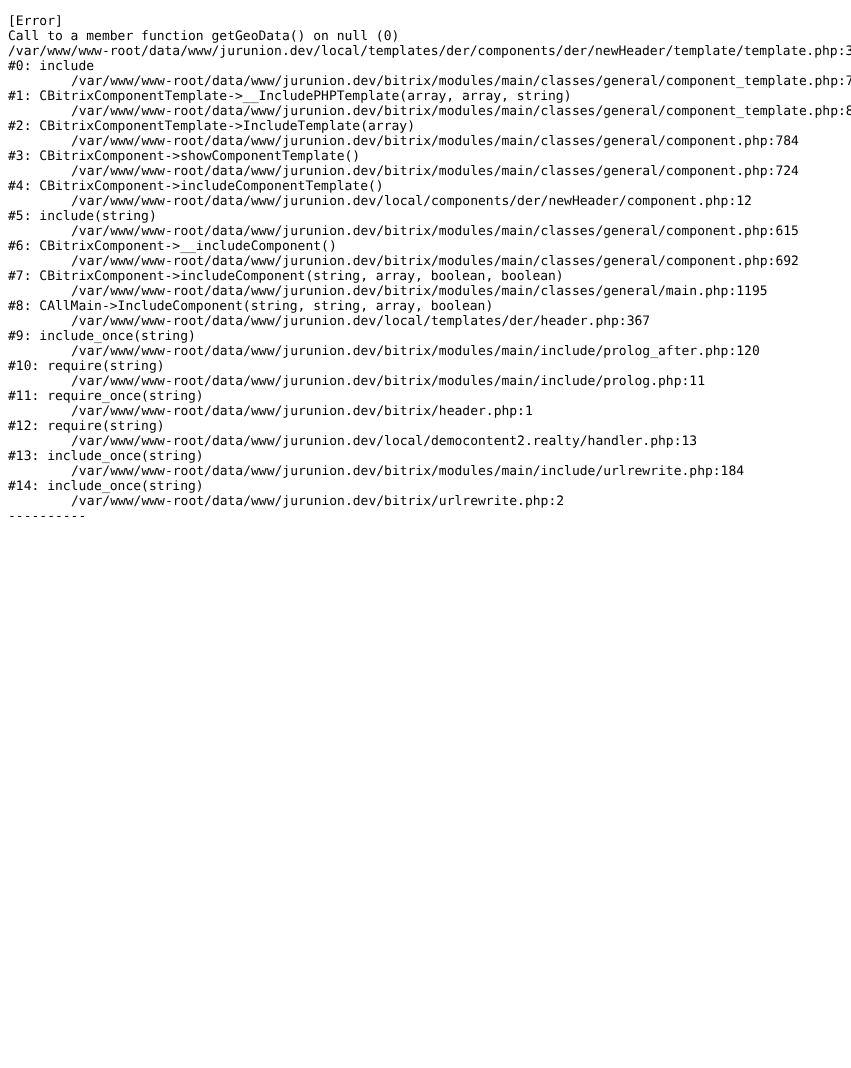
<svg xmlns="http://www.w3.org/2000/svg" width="851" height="1068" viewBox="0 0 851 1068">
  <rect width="100%" height="100%" fill="#ffffff"/>
  <text x="8" y="25" font-family="DejaVu Sans Mono" font-size="13" fill="#000000">[Error]</text>
  <text x="8" y="40" font-family="DejaVu Sans Mono" font-size="13" fill="#000000">Call to a member function getGeoData() on null (0)</text>
  <text x="8" y="55" font-family="DejaVu Sans Mono" font-size="13" fill="#000000">/var/www/www-root/data/www/jurunion.dev/local/templates/der/components/der/newHeader/template/template.php:3</text>
  <text x="8" y="70" font-family="DejaVu Sans Mono" font-size="13" fill="#000000">#0: include</text>
  <text x="71" y="85" font-family="DejaVu Sans Mono" font-size="13" fill="#000000">/var/www/www-root/data/www/jurunion.dev/bitrix/modules/main/classes/general/component_template.php:7</text>
  <text x="8" y="100" font-family="DejaVu Sans Mono" font-size="13" fill="#000000">#1: CBitrixComponentTemplate-&gt;__IncludePHPTemplate(array, array, string)</text>
  <text x="71" y="115" font-family="DejaVu Sans Mono" font-size="13" fill="#000000">/var/www/www-root/data/www/jurunion.dev/bitrix/modules/main/classes/general/component_template.php:8</text>
  <text x="8" y="130" font-family="DejaVu Sans Mono" font-size="13" fill="#000000">#2: CBitrixComponentTemplate-&gt;IncludeTemplate(array)</text>
  <text x="71" y="145" font-family="DejaVu Sans Mono" font-size="13" fill="#000000">/var/www/www-root/data/www/jurunion.dev/bitrix/modules/main/classes/general/component.php:784</text>
  <text x="8" y="160" font-family="DejaVu Sans Mono" font-size="13" fill="#000000">#3: CBitrixComponent-&gt;showComponentTemplate()</text>
  <text x="71" y="175" font-family="DejaVu Sans Mono" font-size="13" fill="#000000">/var/www/www-root/data/www/jurunion.dev/bitrix/modules/main/classes/general/component.php:724</text>
  <text x="8" y="190" font-family="DejaVu Sans Mono" font-size="13" fill="#000000">#4: CBitrixComponent-&gt;includeComponentTemplate()</text>
  <text x="71" y="205" font-family="DejaVu Sans Mono" font-size="13" fill="#000000">/var/www/www-root/data/www/jurunion.dev/local/components/der/newHeader/component.php:12</text>
  <text x="8" y="220" font-family="DejaVu Sans Mono" font-size="13" fill="#000000">#5: include(string)</text>
  <text x="71" y="235" font-family="DejaVu Sans Mono" font-size="13" fill="#000000">/var/www/www-root/data/www/jurunion.dev/bitrix/modules/main/classes/general/component.php:615</text>
  <text x="8" y="250" font-family="DejaVu Sans Mono" font-size="13" fill="#000000">#6: CBitrixComponent-&gt;__includeComponent()</text>
  <text x="71" y="265" font-family="DejaVu Sans Mono" font-size="13" fill="#000000">/var/www/www-root/data/www/jurunion.dev/bitrix/modules/main/classes/general/component.php:692</text>
  <text x="8" y="280" font-family="DejaVu Sans Mono" font-size="13" fill="#000000">#7: CBitrixComponent-&gt;includeComponent(string, array, boolean, boolean)</text>
  <text x="71" y="295" font-family="DejaVu Sans Mono" font-size="13" fill="#000000">/var/www/www-root/data/www/jurunion.dev/bitrix/modules/main/classes/general/main.php:1195</text>
  <text x="8" y="310" font-family="DejaVu Sans Mono" font-size="13" fill="#000000">#8: CAllMain-&gt;IncludeComponent(string, string, array, boolean)</text>
  <text x="71" y="325" font-family="DejaVu Sans Mono" font-size="13" fill="#000000">/var/www/www-root/data/www/jurunion.dev/local/templates/der/header.php:367</text>
  <text x="8" y="340" font-family="DejaVu Sans Mono" font-size="13" fill="#000000">#9: include_once(string)</text>
  <text x="71" y="355" font-family="DejaVu Sans Mono" font-size="13" fill="#000000">/var/www/www-root/data/www/jurunion.dev/bitrix/modules/main/include/prolog_after.php:120</text>
  <text x="8" y="370" font-family="DejaVu Sans Mono" font-size="13" fill="#000000">#10: require(string)</text>
  <text x="71" y="385" font-family="DejaVu Sans Mono" font-size="13" fill="#000000">/var/www/www-root/data/www/jurunion.dev/bitrix/modules/main/include/prolog.php:11</text>
  <text x="8" y="400" font-family="DejaVu Sans Mono" font-size="13" fill="#000000">#11: require_once(string)</text>
  <text x="71" y="415" font-family="DejaVu Sans Mono" font-size="13" fill="#000000">/var/www/www-root/data/www/jurunion.dev/bitrix/header.php:1</text>
  <text x="8" y="430" font-family="DejaVu Sans Mono" font-size="13" fill="#000000">#12: require(string)</text>
  <text x="71" y="445" font-family="DejaVu Sans Mono" font-size="13" fill="#000000">/var/www/www-root/data/www/jurunion.dev/local/democontent2.realty/handler.php:13</text>
  <text x="8" y="460" font-family="DejaVu Sans Mono" font-size="13" fill="#000000">#13: include_once(string)</text>
  <text x="71" y="475" font-family="DejaVu Sans Mono" font-size="13" fill="#000000">/var/www/www-root/data/www/jurunion.dev/bitrix/modules/main/include/urlrewrite.php:184</text>
  <text x="8" y="490" font-family="DejaVu Sans Mono" font-size="13" fill="#000000">#14: include_once(string)</text>
  <text x="71" y="505" font-family="DejaVu Sans Mono" font-size="13" fill="#000000">/var/www/www-root/data/www/jurunion.dev/bitrix/urlrewrite.php:2</text>
  <text x="8" y="520" font-family="DejaVu Sans Mono" font-size="13" fill="#000000">----------</text>
</svg>
